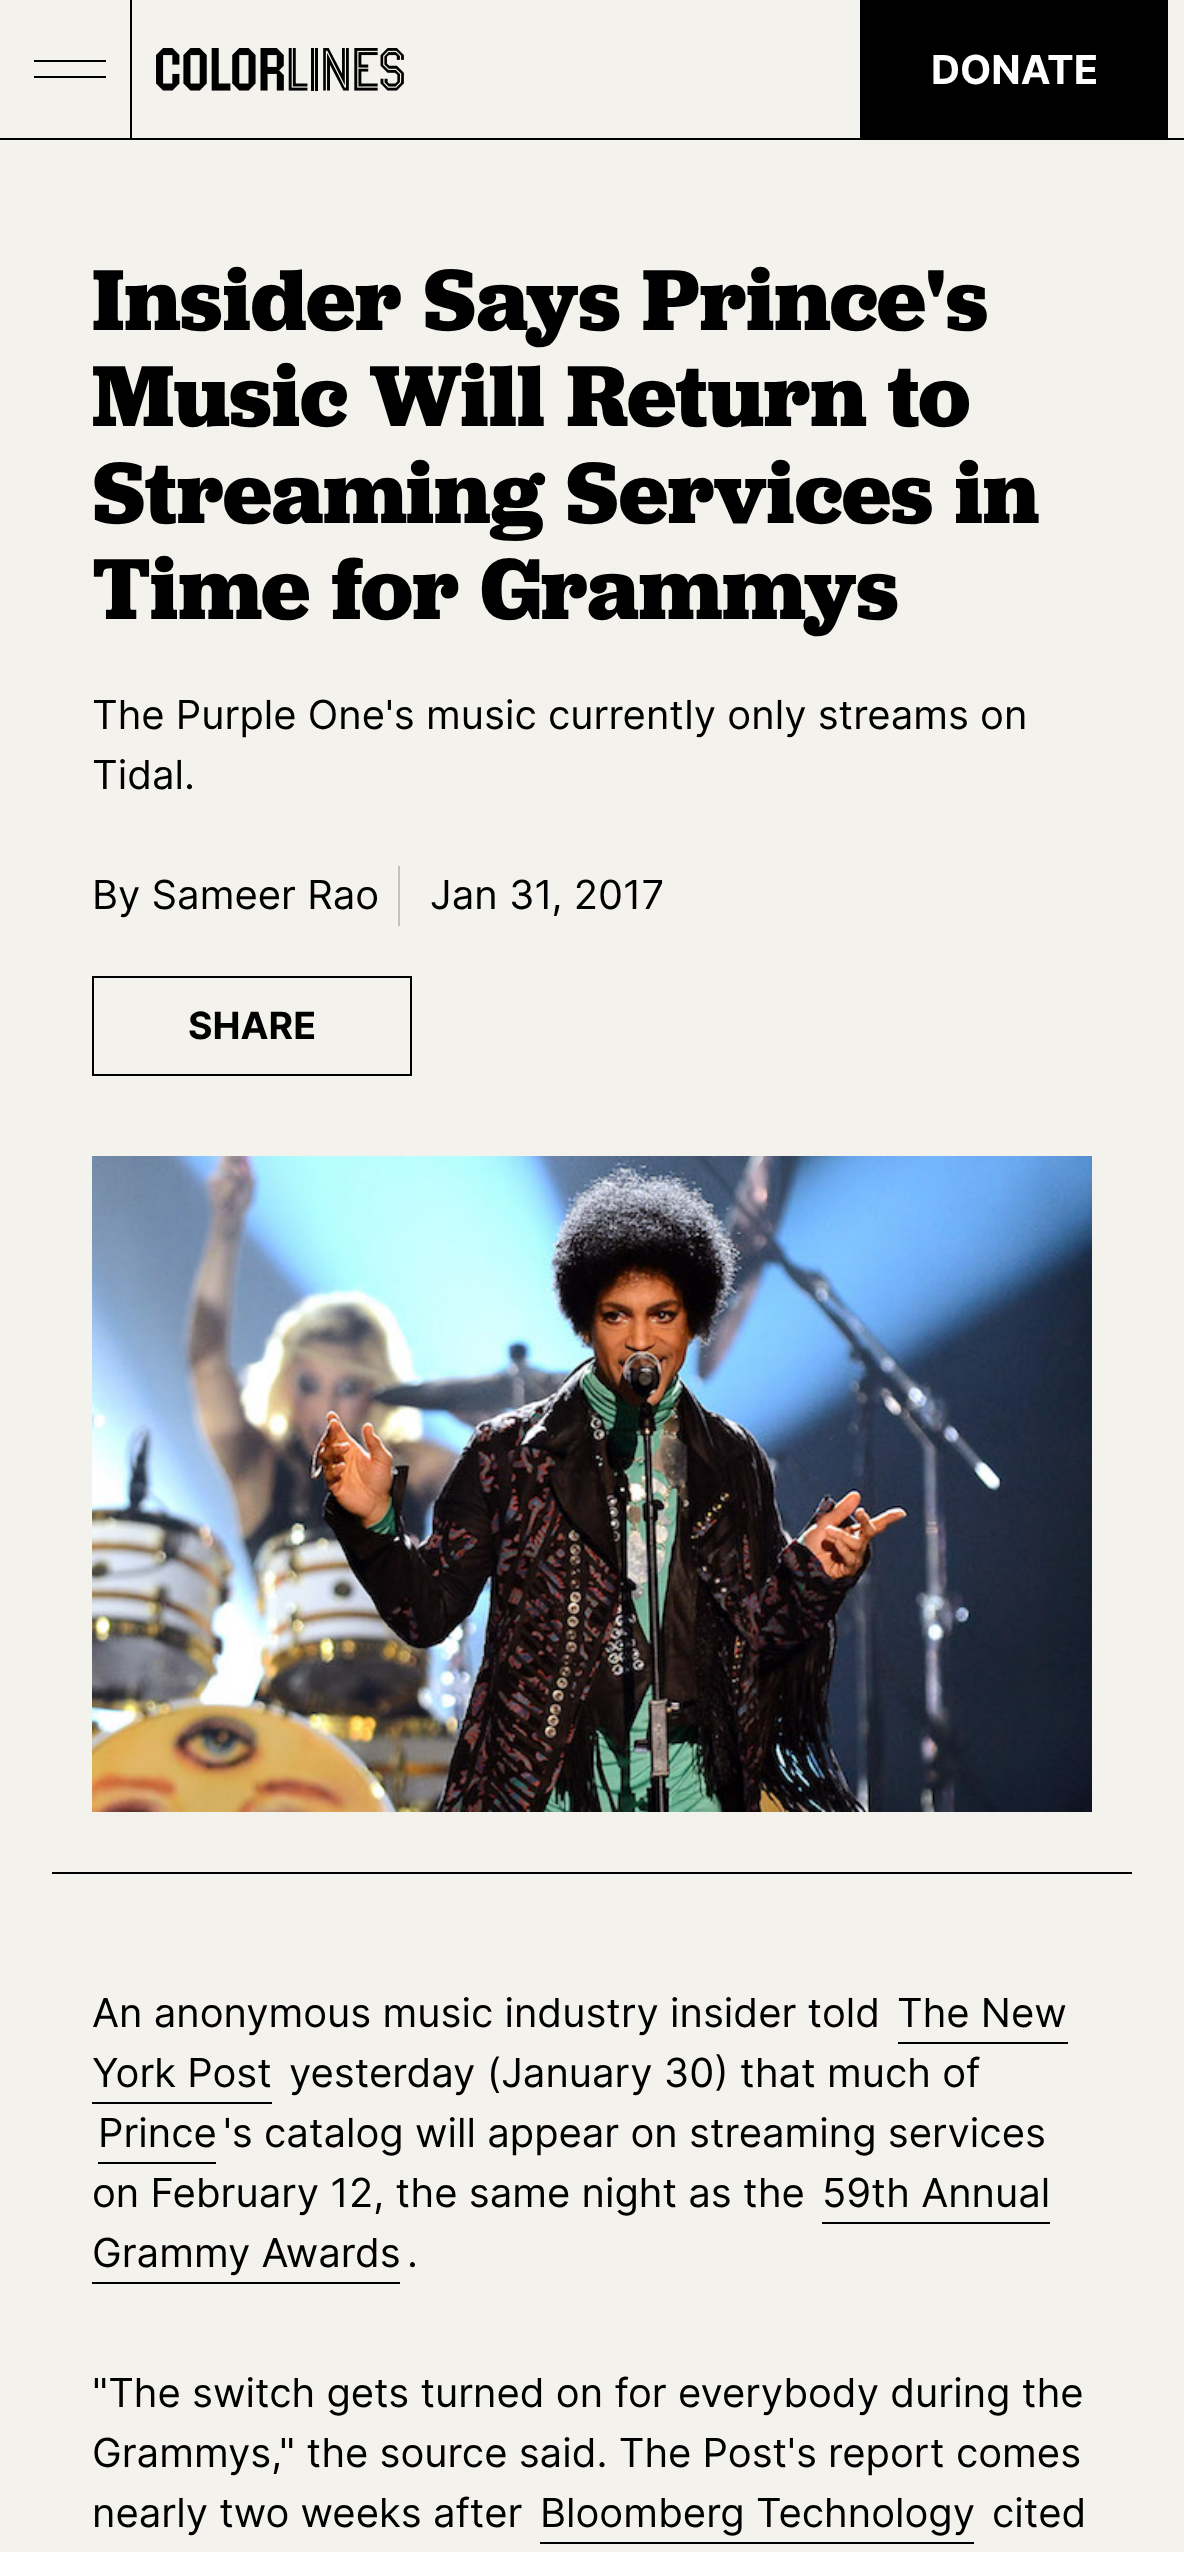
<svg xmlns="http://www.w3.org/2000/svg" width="1184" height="2552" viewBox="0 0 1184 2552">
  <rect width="100%" height="100%" fill="#f4f2ed"/>
  <rect x="0" y="138" width="1184" height="2" fill="#000000"/>
  <rect x="130" y="0" width="2" height="140" fill="#000000"/>
  <rect x="34" y="60" width="72" height="2" fill="#000000"/>
  <rect x="34" y="76" width="72" height="2" fill="#000000"/>
  <image x="156" y="48" width="248" height="43" href="img1.png"/>
  <rect x="860" y="0" width="308" height="138" fill="#000000"/>
  <text x="931" y="84" font-family="Inter" font-size="40" font-weight="bold" fill="#ffffff">DONATE</text>
  <rect x="52" y="1872" width="1080" height="2" fill="#000000"/>
  <text x="92" y="330" font-family="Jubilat" font-size="90" font-weight="bold" fill="#000000">Insider Says Prince's</text>
  <text x="92" y="426" font-family="Jubilat" font-size="90" font-weight="bold" fill="#000000">Music Will Return to</text>
  <text x="92" y="523" font-family="Jubilat" font-size="90" font-weight="bold" fill="#000000">Streaming Services in</text>
  <text x="92" y="619" font-family="Jubilat" font-size="90" font-weight="bold" fill="#000000">Time for Grammys</text>
  <text x="92" y="729" font-family="Inter" font-size="40" fill="#000000">The Purple One's music currently only streams on</text>
  <text x="92" y="789" font-family="Inter" font-size="40" fill="#000000">Tidal.</text>
  <text x="92" y="909" font-family="Inter" font-size="40" fill="#000000">By Sameer Rao</text>
  <rect x="398" y="866" width="2" height="60" fill="#c3c2be"/>
  <text x="430" y="909" font-family="Inter" font-size="40" fill="#000000">Jan 31, 2017</text>
  <rect x="93" y="977" width="318" height="98" fill="none" stroke="#000000" stroke-width="2"/>
  <text x="188" y="1039" font-family="Inter" font-size="37.5" font-weight="bold" fill="#000000">SHARE</text>
  <image x="92" y="1156" width="1000" height="656" href="img2.png"/>
  <text x="92" y="2027" font-family="Inter" font-size="40" fill="#000000">An anonymous music industry insider told</text>
  <text x="897" y="2027" font-family="Inter" font-size="40" fill="#000000">The New</text>
  <rect x="898" y="2042" width="170" height="2" fill="#000000"/>
  <text x="92" y="2087" font-family="Inter" font-size="40" fill="#000000">York Post</text>
  <rect x="92" y="2102" width="180" height="2" fill="#000000"/>
  <text x="289" y="2087" font-family="Inter" font-size="40" fill="#000000">yesterday (January 30) that much of</text>
  <text x="98" y="2147" font-family="Inter" font-size="40" fill="#000000">Prince</text>
  <rect x="98" y="2162" width="118" height="2" fill="#000000"/>
  <text x="223" y="2147" font-family="Inter" font-size="40" fill="#000000">'s catalog will appear on streaming services</text>
  <text x="92" y="2207" font-family="Inter" font-size="40" fill="#000000">on February 12, the same night as the</text>
  <text x="822" y="2207" font-family="Inter" font-size="40" fill="#000000">59th Annual</text>
  <rect x="822" y="2222" width="228" height="2" fill="#000000"/>
  <text x="92" y="2267" font-family="Inter" font-size="40" fill="#000000">Grammy Awards</text>
  <rect x="92" y="2282" width="308" height="2" fill="#000000"/>
  <text x="407" y="2267" font-family="Inter" font-size="40" fill="#000000">.</text>
  <text x="92" y="2407" font-family="Inter" font-size="40" fill="#000000">"The switch gets turned on for everybody during the</text>
  <text x="92" y="2467" font-family="Inter" font-size="40" fill="#000000">Grammys," the source said. The Post's report comes</text>
  <text x="92" y="2527" font-family="Inter" font-size="40" fill="#000000">nearly two weeks after</text>
  <text x="540" y="2527" font-family="Inter" font-size="40" fill="#000000">Bloomberg Technology</text>
  <rect x="540" y="2542" width="434" height="2" fill="#000000"/>
  <text x="992" y="2527" font-family="Inter" font-size="40" fill="#000000">cited</text>
</svg>
